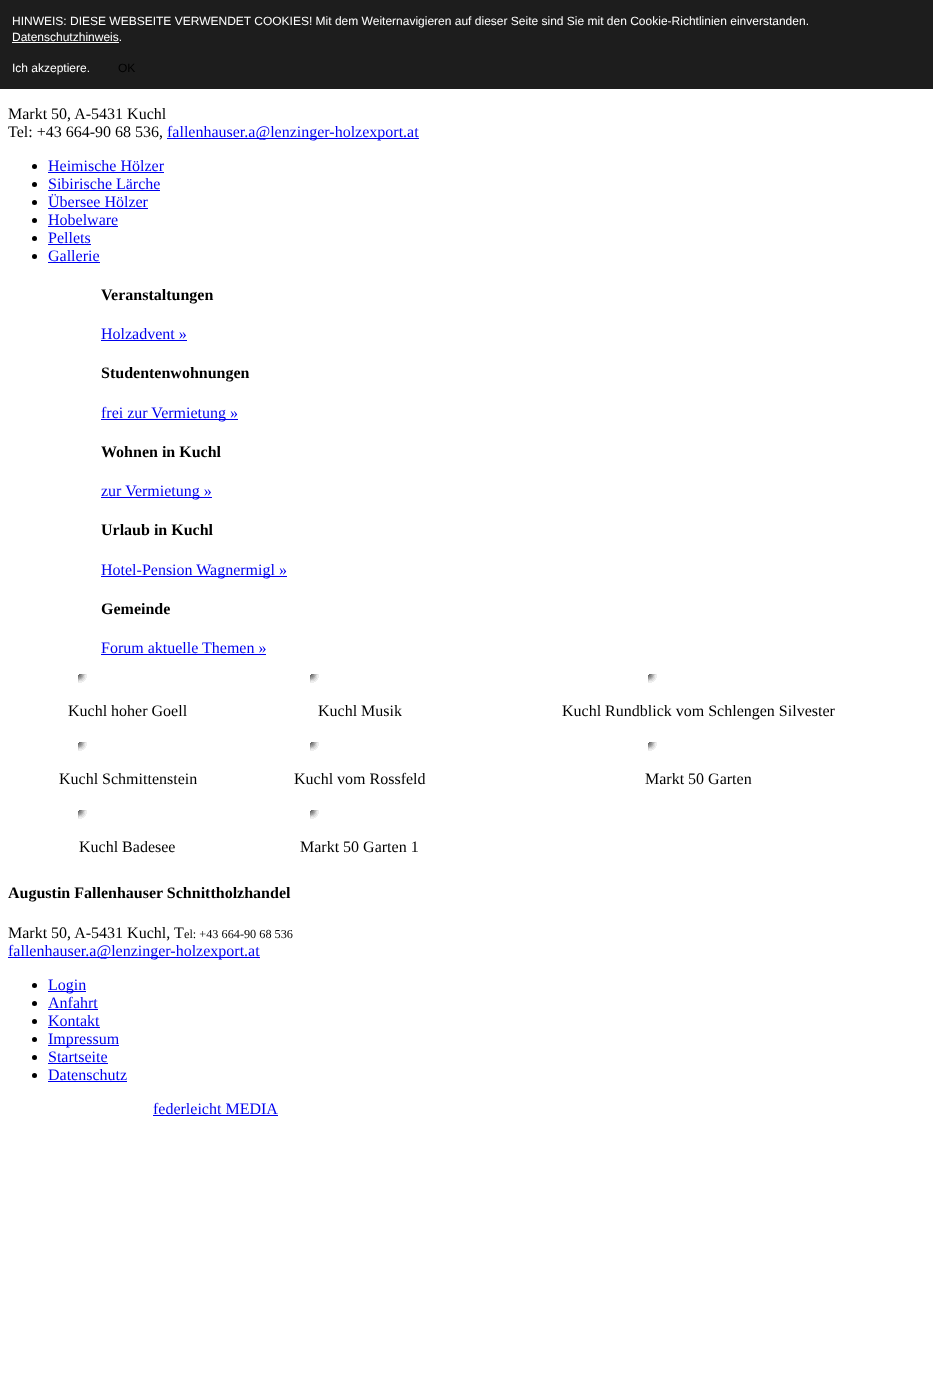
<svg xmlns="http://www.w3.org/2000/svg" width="933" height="1381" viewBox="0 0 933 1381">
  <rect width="100%" height="100%" fill="#ffffff"/>
  <rect x="0" y="0" width="933" height="89" fill="#1d1d1d"/>
  <text x="12" y="25" font-family="Liberation Sans" font-size="12" fill="#ffffff">HINWEIS: DIESE WEBSEITE VERWENDET COOKIES! Mit dem Weiternavigieren auf dieser Seite sind Sie mit den Cookie-Richtlinien einverstanden.</text>
  <text x="12" y="41" font-family="Liberation Sans" font-size="12" fill="#ffffff">Datenschutzhinweis.</text>
  <rect x="12" y="42" width="107" height="1" fill="#ffffff"/>
  <text x="12" y="72" font-family="Liberation Sans" font-size="12" fill="#ffffff">Ich akzeptiere.</text>
  <text x="118" y="72" font-family="Liberation Sans" font-size="12" fill="#000000">OK</text>
  <text x="8" y="119" font-family="Liberation Serif" font-size="16" fill="#000000">Markt 50, A-5431 Kuchl</text>
  <text x="8" y="137" font-family="Liberation Serif" font-size="16" fill="#000000">Tel: +43 664-90 68 536,</text>
  <rect x="167" y="138" width="252" height="1" fill="#0000ee"/>
  <text x="167" y="137" font-family="Liberation Serif" font-size="16" fill="#0000ee">fallenhauser.a@lenzinger-holzexport.at</text>
  <circle cx="34.5" cy="166.5" r="2.5" fill="#000000"/>
  <text x="48" y="171" font-family="Liberation Serif" font-size="16" fill="#0000ee">Heimische Hölzer</text>
  <rect x="48" y="172" width="116" height="1" fill="#0000ee"/>
  <circle cx="34.5" cy="184.5" r="2.5" fill="#000000"/>
  <text x="48" y="189" font-family="Liberation Serif" font-size="16" fill="#0000ee">Sibirische Lärche</text>
  <rect x="48" y="190" width="112" height="1" fill="#0000ee"/>
  <circle cx="34.5" cy="202.5" r="2.5" fill="#000000"/>
  <text x="48" y="207" font-family="Liberation Serif" font-size="16" fill="#0000ee">Übersee Hölzer</text>
  <rect x="48" y="208" width="100" height="1" fill="#0000ee"/>
  <circle cx="34.5" cy="220.5" r="2.5" fill="#000000"/>
  <text x="48" y="225" font-family="Liberation Serif" font-size="16" fill="#0000ee">Hobelware</text>
  <rect x="48" y="226" width="70" height="1" fill="#0000ee"/>
  <circle cx="34.5" cy="238.5" r="2.5" fill="#000000"/>
  <text x="48" y="243" font-family="Liberation Serif" font-size="16" fill="#0000ee">Pellets</text>
  <rect x="48" y="244" width="43" height="1" fill="#0000ee"/>
  <circle cx="34.5" cy="256.5" r="2.5" fill="#000000"/>
  <text x="48" y="261" font-family="Liberation Serif" font-size="16" fill="#0000ee">Gallerie</text>
  <rect x="48" y="262" width="52" height="1" fill="#0000ee"/>
  <text x="101" y="300" font-family="Liberation Serif" font-size="16" font-weight="bold" fill="#000000">Veranstaltungen</text>
  <text x="101" y="339" font-family="Liberation Serif" font-size="16" fill="#0000ee">Holzadvent »</text>
  <rect x="101" y="340" width="86" height="1" fill="#0000ee"/>
  <text x="101" y="378" font-family="Liberation Serif" font-size="16" font-weight="bold" fill="#000000">Studentenwohnungen</text>
  <rect x="101" y="419" width="137" height="1" fill="#0000ee"/>
  <text x="101" y="418" font-family="Liberation Serif" font-size="16" fill="#0000ee">frei zur Vermietung »</text>
  <text x="101" y="457" font-family="Liberation Serif" font-size="16" font-weight="bold" fill="#000000">Wohnen in Kuchl</text>
  <rect x="101" y="497" width="111" height="1" fill="#0000ee"/>
  <text x="101" y="496" font-family="Liberation Serif" font-size="16" fill="#0000ee">zur Vermietung »</text>
  <text x="101" y="535" font-family="Liberation Serif" font-size="16" font-weight="bold" fill="#000000">Urlaub in Kuchl</text>
  <rect x="101" y="576" width="186" height="1" fill="#0000ee"/>
  <text x="101" y="575" font-family="Liberation Serif" font-size="16" fill="#0000ee">Hotel-Pension Wagnermigl »</text>
  <text x="101" y="614" font-family="Liberation Serif" font-size="16" font-weight="bold" fill="#000000">Gemeinde</text>
  <text x="101" y="653" font-family="Liberation Serif" font-size="16" fill="#0000ee">Forum aktuelle Themen »</text>
  <rect x="101" y="654" width="165" height="1" fill="#0000ee"/>
  <image x="78" y="674" width="9" height="9" href="img1.png"/>
  <text x="68" y="716" font-family="Liberation Serif" font-size="16" fill="#000000">Kuchl hoher Goell</text>
  <image x="310" y="674" width="9" height="9" href="img1.png"/>
  <text x="318" y="716" font-family="Liberation Serif" font-size="16" fill="#000000">Kuchl Musik</text>
  <image x="648" y="674" width="9" height="9" href="img1.png"/>
  <text x="562" y="716" font-family="Liberation Serif" font-size="16" fill="#000000">Kuchl Rundblick vom Schlengen Silvester</text>
  <image x="78" y="742" width="9" height="9" href="img1.png"/>
  <text x="59" y="784" font-family="Liberation Serif" font-size="16" fill="#000000">Kuchl Schmittenstein</text>
  <image x="310" y="742" width="9" height="9" href="img1.png"/>
  <text x="294" y="784" font-family="Liberation Serif" font-size="16" fill="#000000">Kuchl vom Rossfeld</text>
  <image x="648" y="742" width="9" height="9" href="img1.png"/>
  <text x="645" y="784" font-family="Liberation Serif" font-size="16" fill="#000000">Markt 50 Garten</text>
  <image x="78" y="810" width="9" height="9" href="img1.png"/>
  <text x="79" y="852" font-family="Liberation Serif" font-size="16" fill="#000000">Kuchl Badesee</text>
  <image x="310" y="810" width="9" height="9" href="img1.png"/>
  <text x="300" y="852" font-family="Liberation Serif" font-size="16" fill="#000000">Markt 50 Garten 1</text>
  <text x="8" y="898" font-family="Liberation Serif" font-size="16" font-weight="bold" fill="#000000">Augustin Fallenhauser Schnittholzhandel</text>
  <text x="8" y="938" font-family="Liberation Serif" font-size="16" fill="#000000">Markt 50, A-5431 Kuchl, T</text>
  <text x="184" y="938" font-family="Liberation Serif" font-size="12.25" fill="#000000">el: +43 664-90 68 536</text>
  <rect x="8" y="957" width="252" height="1" fill="#0000ee"/>
  <text x="8" y="956" font-family="Liberation Serif" font-size="16" fill="#0000ee">fallenhauser.a@lenzinger-holzexport.at</text>
  <circle cx="34.5" cy="985.5" r="2.5" fill="#000000"/>
  <rect x="48" y="991" width="38" height="1" fill="#0000ee"/>
  <text x="48" y="990" font-family="Liberation Serif" font-size="16" fill="#0000ee">Login</text>
  <circle cx="34.5" cy="1003.5" r="2.5" fill="#000000"/>
  <text x="48" y="1008" font-family="Liberation Serif" font-size="16" fill="#0000ee">Anfahrt</text>
  <rect x="48" y="1009" width="50" height="1" fill="#0000ee"/>
  <circle cx="34.5" cy="1021.5" r="2.5" fill="#000000"/>
  <text x="48" y="1026" font-family="Liberation Serif" font-size="16" fill="#0000ee">Kontakt</text>
  <rect x="48" y="1027" width="52" height="1" fill="#0000ee"/>
  <circle cx="34.5" cy="1039.5" r="2.5" fill="#000000"/>
  <rect x="48" y="1045" width="71" height="1" fill="#0000ee"/>
  <text x="48" y="1044" font-family="Liberation Serif" font-size="16" fill="#0000ee">Impressum</text>
  <circle cx="34.5" cy="1057.5" r="2.5" fill="#000000"/>
  <text x="48" y="1062" font-family="Liberation Serif" font-size="16" fill="#0000ee">Startseite</text>
  <rect x="48" y="1063" width="60" height="1" fill="#0000ee"/>
  <circle cx="34.5" cy="1075.5" r="2.5" fill="#000000"/>
  <text x="48" y="1080" font-family="Liberation Serif" font-size="16" fill="#0000ee">Datenschutz</text>
  <rect x="48" y="1081" width="79" height="1" fill="#0000ee"/>
  <text x="153" y="1114" font-family="Liberation Serif" font-size="16" fill="#0000ee">federleicht MEDIA</text>
  <rect x="153" y="1115" width="125" height="1" fill="#0000ee"/>
</svg>
